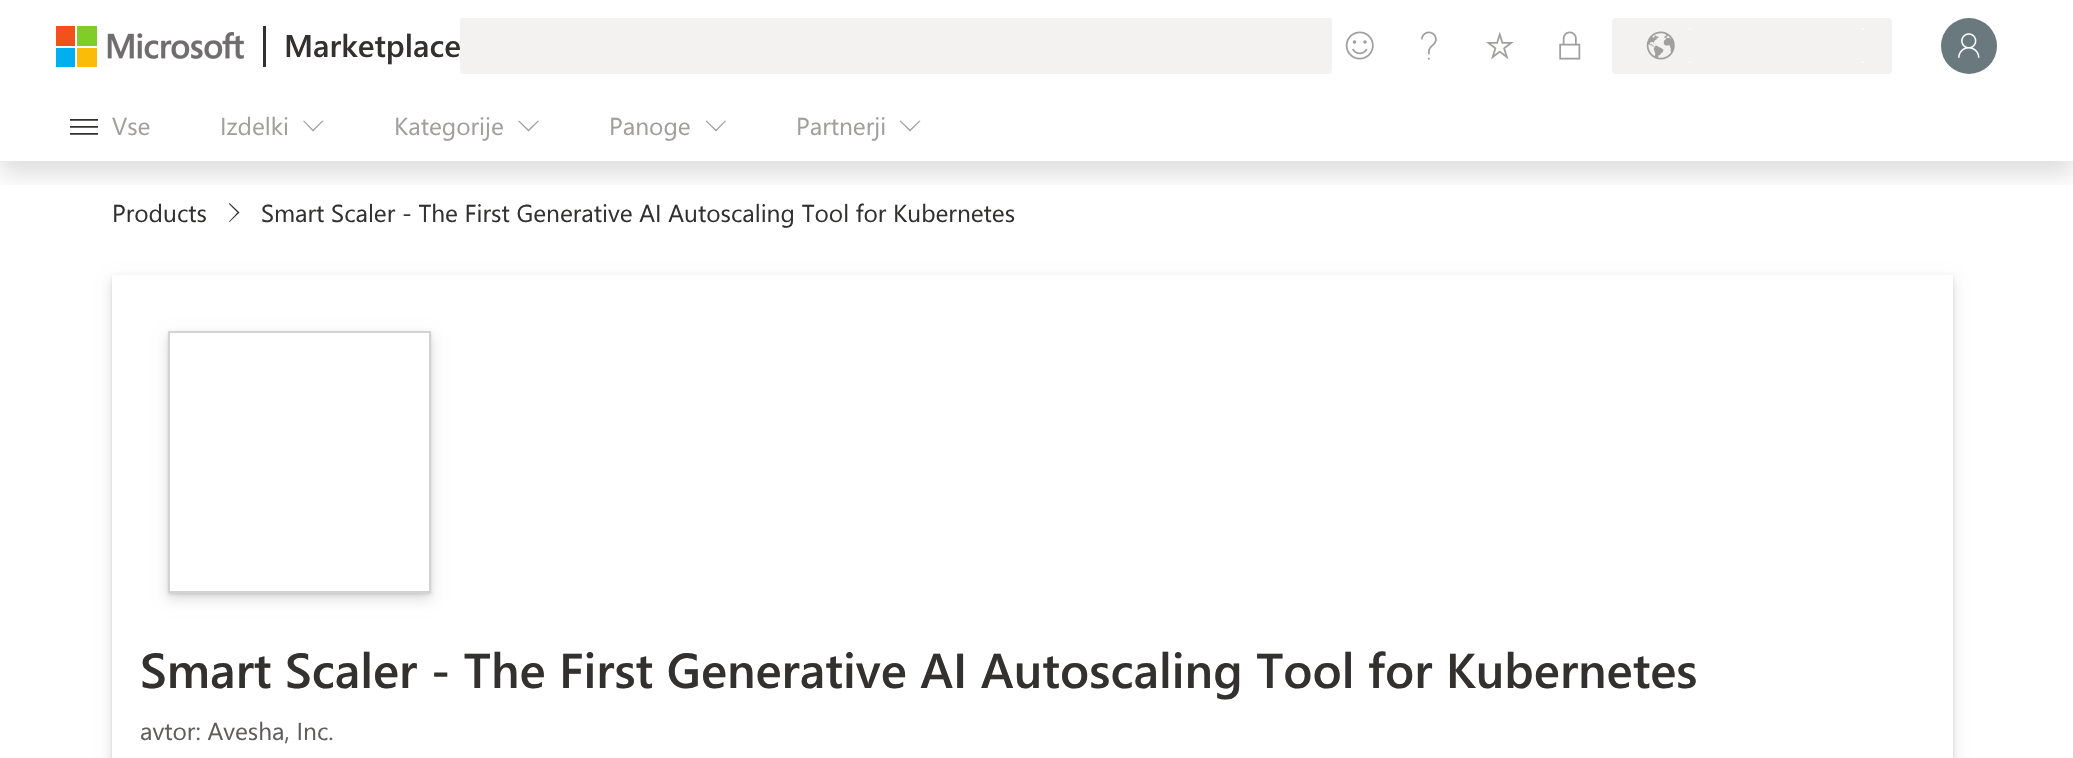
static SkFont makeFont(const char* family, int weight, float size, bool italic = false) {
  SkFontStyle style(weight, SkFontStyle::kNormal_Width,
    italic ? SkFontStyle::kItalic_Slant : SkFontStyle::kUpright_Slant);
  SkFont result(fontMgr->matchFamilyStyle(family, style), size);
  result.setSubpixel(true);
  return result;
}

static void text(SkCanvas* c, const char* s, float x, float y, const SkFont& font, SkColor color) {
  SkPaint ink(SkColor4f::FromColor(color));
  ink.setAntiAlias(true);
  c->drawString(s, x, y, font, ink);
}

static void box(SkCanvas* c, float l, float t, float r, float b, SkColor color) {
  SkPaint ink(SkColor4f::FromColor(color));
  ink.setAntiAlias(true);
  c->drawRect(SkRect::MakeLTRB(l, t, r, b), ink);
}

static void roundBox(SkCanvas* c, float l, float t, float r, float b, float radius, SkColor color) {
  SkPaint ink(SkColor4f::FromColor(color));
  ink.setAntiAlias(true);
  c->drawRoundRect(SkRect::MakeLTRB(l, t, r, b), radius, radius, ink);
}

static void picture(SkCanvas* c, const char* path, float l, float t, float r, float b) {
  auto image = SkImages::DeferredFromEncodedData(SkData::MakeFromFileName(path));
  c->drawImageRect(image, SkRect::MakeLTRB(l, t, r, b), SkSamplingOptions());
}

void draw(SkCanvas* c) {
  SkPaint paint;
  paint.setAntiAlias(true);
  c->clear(0xffffffff);
  paint.setColor(0xff323130);
  c->drawPath(SkPathBuilder().moveTo(229, 221.5f).lineTo(237.5f, 212.5f).lineTo(229, 204).lineTo(229.5f, 203).lineTo(239.5f, 212.5f).lineTo(229.5f, 222).close().detach(), paint);
  c->save();
  c->clipRect(SkRect::MakeLTRB(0, 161, 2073, 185));
  paint.setColor(0x1f000000);
  paint.setMaskFilter(SkMaskFilter::MakeBlur(kNormal_SkBlurStyle, 10.5f));
  c->drawRect(SkRect::MakeLTRB(0, 14, 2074, 175), paint);
  paint.setMaskFilter(nullptr);
  c->restore();
  picture(c, "img_01.png", 56, 26, 244, 67);
  box(c, 263, 26, 266, 67, 0xff323130);
  SkFont face1 = makeFont("Segoe UI", 600, 31.5f);
  text(c, "Marketplace", 284, 57, face1, 0xff323130);
  box(c, 460, 18, 1332, 74, 0xfff3f2f1);
  picture(c, "img_02.png", 460, 18, 462, 20);
  picture(c, "img_03.png", 1330, 18, 1332, 20);
  box(c, 460, 71, 463, 74, 0xfff8f7f7);
  box(c, 1329, 71, 1332, 74, 0xfff8f7f7);
  picture(c, "img_04.png", 1345, 31, 1374, 60);
  picture(c, "img_05.png", 1421, 31, 1437, 60);
  picture(c, "img_06.png", 1486, 31, 1514, 60);
  picture(c, "img_07.png", 1559, 31, 1581, 60);
  roundBox(c, 1612, 18, 1892, 74, 4, 0xfff3f2f1);
  picture(c, "img_08.png", 1646, 31, 1675, 60);
  picture(c, "img_09.png", 1689, 28, 1691, 30);
  picture(c, "img_10.png", 1861, 28, 1864, 30);
  picture(c, "img_11.png", 1689, 61, 1691, 63);
  picture(c, "img_12.png", 1861, 61, 1864, 63);
  paint.setColor(0xff69797e);
  c->drawCircle(1969, 46, 28, paint);
  picture(c, "img_13.png", 1958, 33, 1980, 58);
  picture(c, "img_14.png", 70, 119, 98, 135);
  SkFont face2 = makeFont("Segoe UI", 400, 24.5f);
  text(c, "Vse", 112, 135, face2, 0xffa19f9d);
  text(c, "Izdelki", 220, 135, face2, 0xffa19f9d);
  paint.setColor(0xffa19f9d);
  c->drawPath(SkPathBuilder().moveTo(322.5f, 120.5f).lineTo(323.5f, 121).lineTo(313, 131.5f).lineTo(303, 121).lineTo(304, 120.5f).lineTo(313, 129.5f).close().detach(), paint);
  text(c, "Kategorije", 394, 135, face2, 0xffa19f9d);
  c->drawPath(SkPathBuilder().moveTo(538, 120.5f).lineTo(539, 121).lineTo(528.5f, 131.5f).lineTo(518, 121).lineTo(519, 120.5f).lineTo(528.5f, 129.5f).close().detach(), paint);
  text(c, "Panoge", 609, 135, face2, 0xffa19f9d);
  c->drawPath(SkPathBuilder().moveTo(725, 120.5f).lineTo(726, 121).lineTo(716, 131.5f).lineTo(705.5f, 121).lineTo(706.5f, 120.5f).lineTo(716, 129.5f).close().detach(), paint);
  text(c, "Partnerji", 796, 135, face2, 0xffa19f9d);
  c->drawPath(SkPathBuilder().moveTo(919.5f, 120.5f).lineTo(920.5f, 121).lineTo(910, 131.5f).lineTo(899.5f, 121).lineTo(900.5f, 120.5f).lineTo(910, 129.5f).close().detach(), paint);
  text(c, "Products", 112, 222, face2, 0xff323130);
  text(c, "Smart Scaler - The First Generative AI Autoscaling Tool for Kubernetes", 261, 222, face2, 0xff323130);
  c->save();
  c->clipPath(SkPathBuilder(SkPathFillType::kEvenOdd).moveTo(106, 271).lineTo(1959, 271).lineTo(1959, 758).lineTo(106, 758).close().moveTo(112, 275).lineTo(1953, 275).lineTo(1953, 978).lineTo(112, 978).close().detach(), true);
  paint.setColor(0x1c000000);
  paint.setMaskFilter(SkMaskFilter::MakeBlur(kNormal_SkBlurStyle, 1.5f));
  c->drawRect(SkRect::MakeLTRB(112, 277, 1953, 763), paint);
  paint.setMaskFilter(nullptr);
  c->restore();
  c->save();
  c->clipPath(SkPathBuilder(SkPathFillType::kEvenOdd).moveTo(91, 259).lineTo(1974, 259).lineTo(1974, 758).lineTo(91, 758).close().moveTo(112, 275).lineTo(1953, 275).lineTo(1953, 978).lineTo(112, 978).close().detach(), true);
  paint.setColor(0x21000000);
  paint.setMaskFilter(SkMaskFilter::MakeBlur(kNormal_SkBlurStyle, 6.5f));
  c->drawRect(SkRect::MakeLTRB(112, 280, 1953, 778), paint);
  paint.setMaskFilter(nullptr);
  c->restore();
  c->save();
  c->clipPath(SkPathBuilder(SkPathFillType::kEvenOdd).moveTo(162, 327).lineTo(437, 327).lineTo(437, 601).lineTo(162, 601).close().moveTo(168, 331).lineTo(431, 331).lineTo(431, 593).lineTo(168, 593).close().detach(), true);
  paint.setColor(0x1c000000);
  paint.setMaskFilter(SkMaskFilter::MakeBlur(kNormal_SkBlurStyle, 1.5f));
  c->drawRect(SkRect::MakeLTRB(168, 333, 431, 595), paint);
  paint.setMaskFilter(nullptr);
  c->restore();
  c->save();
  c->clipPath(SkPathBuilder(SkPathFillType::kEvenOdd).moveTo(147, 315).lineTo(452, 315).lineTo(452, 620).lineTo(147, 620).close().moveTo(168, 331).lineTo(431, 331).lineTo(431, 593).lineTo(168, 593).close().detach(), true);
  paint.setColor(0x21000000);
  paint.setMaskFilter(SkMaskFilter::MakeBlur(kNormal_SkBlurStyle, 6.5f));
  c->drawRect(SkRect::MakeLTRB(168, 336, 431, 599), paint);
  paint.setMaskFilter(nullptr);
  c->restore();
  paint.setStyle(SkPaint::kStroke_Style);
  paint.setStrokeWidth(2);
  paint.setColor(0xffd3d3d3);
  c->drawRect(SkRect::MakeLTRB(169, 332, 430, 592), paint);
  SkFont face3 = makeFont("Segoe UI", 600, 49);
  text(c, "Smart Scaler - The First Generative AI Autoscaling Tool for Kubernetes", 140, 688, face3, 0xff323130);
  text(c, "avtor: Avesha, Inc.", 140, 740, face2, 0xff605e5c);
}
